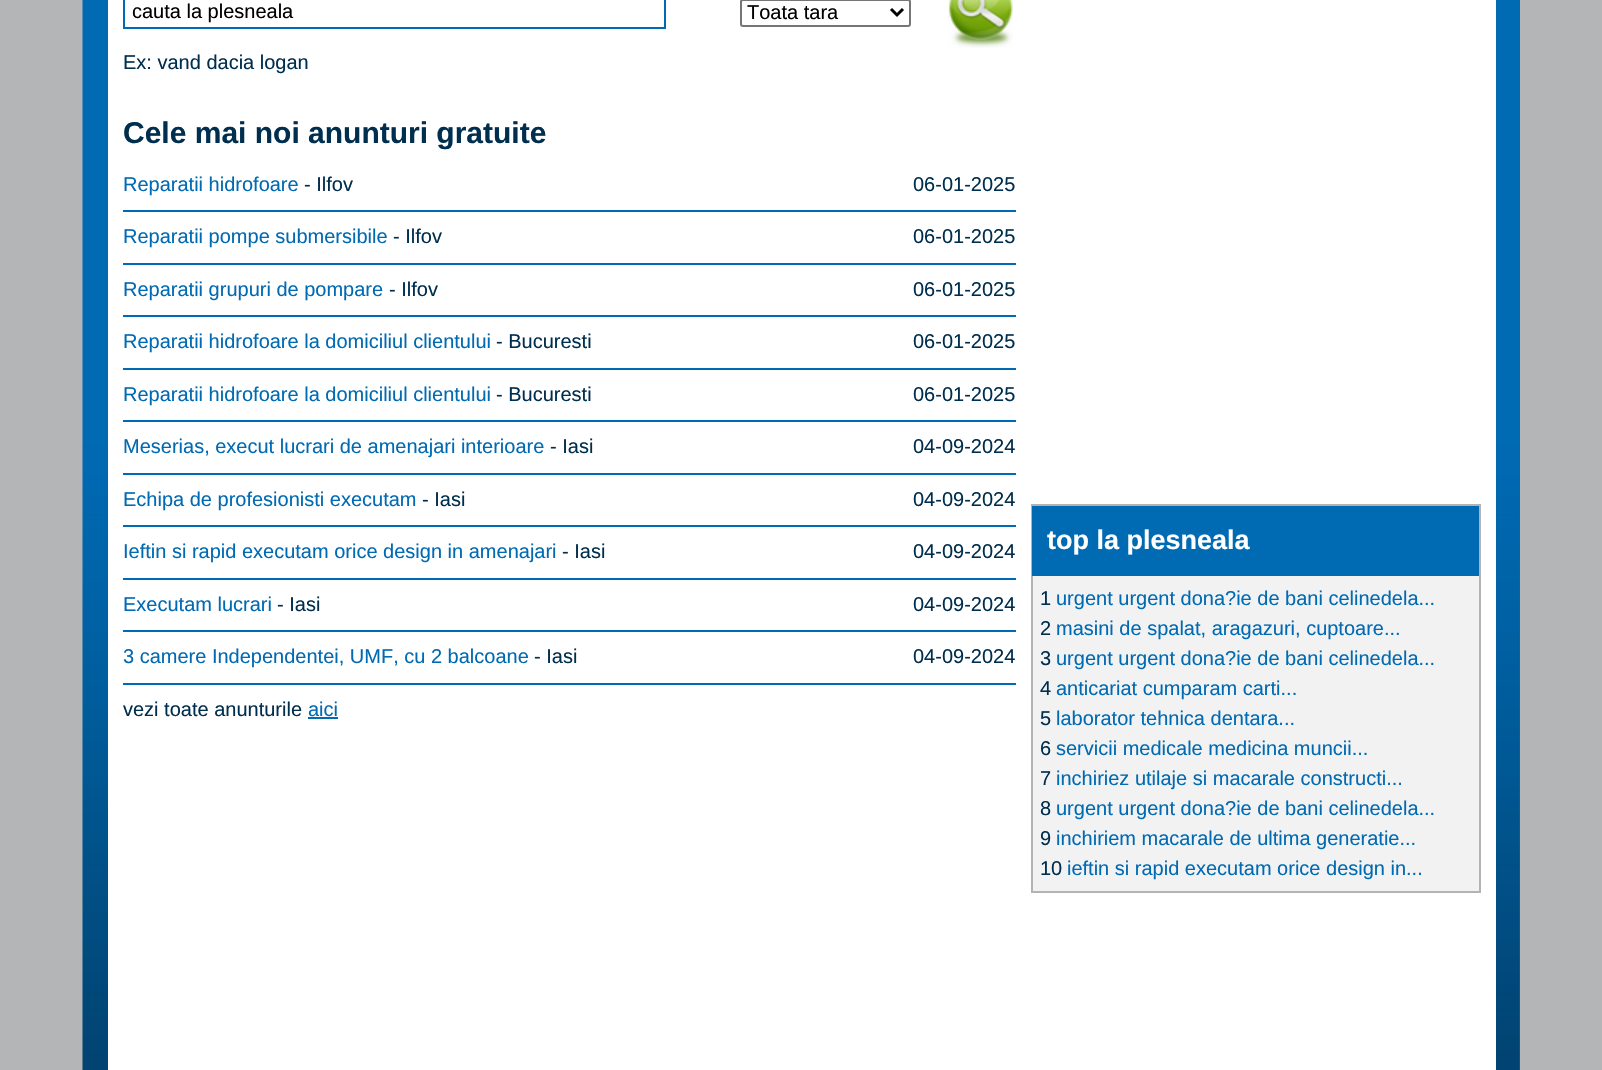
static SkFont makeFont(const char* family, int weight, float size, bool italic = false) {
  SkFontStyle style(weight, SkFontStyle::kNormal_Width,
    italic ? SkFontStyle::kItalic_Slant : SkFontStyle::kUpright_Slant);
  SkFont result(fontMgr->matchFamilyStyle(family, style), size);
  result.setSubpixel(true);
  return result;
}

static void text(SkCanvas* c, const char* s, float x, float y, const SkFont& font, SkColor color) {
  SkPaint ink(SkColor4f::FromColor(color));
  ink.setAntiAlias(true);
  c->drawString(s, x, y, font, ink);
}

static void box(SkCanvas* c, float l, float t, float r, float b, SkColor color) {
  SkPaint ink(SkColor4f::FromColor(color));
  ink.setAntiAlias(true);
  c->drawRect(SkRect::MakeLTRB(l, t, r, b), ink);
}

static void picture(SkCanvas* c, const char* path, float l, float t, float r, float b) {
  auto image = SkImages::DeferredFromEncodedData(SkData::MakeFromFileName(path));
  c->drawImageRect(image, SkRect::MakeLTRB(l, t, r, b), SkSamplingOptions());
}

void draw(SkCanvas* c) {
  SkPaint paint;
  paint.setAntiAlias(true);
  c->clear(0xffb3b5b6);
  box(c, 1519, 0, 1520, 1070, 0xff006ab3);
  picture(c, "img_01.png", 82, 0, 1520, 1070);
  box(c, 108, 0, 1496, 1070, 0xffffffff);
  paint.setStyle(SkPaint::kStroke_Style);
  paint.setStrokeWidth(2);
  paint.setColor(0xff006ab3);
  c->drawRect(SkRect::MakeLTRB(124, -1, 665, 28), paint);
  SkFont face1 = makeFont("Liberation Sans", 400, 20);
  text(c, "cauta la plesneala", 132, 18, face1, 0xff000000);
  paint.setColor(0xff767676);
  c->drawRoundRect(SkRect::MakeLTRB(741, 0, 910, 26), 2, 2, paint);
  paint.setStrokeWidth(3);
  paint.setColor(0xff000000);
  c->drawPath(SkPathBuilder().moveTo(891, 9).lineTo(897, 15).lineTo(903, 9).detach(), paint);
  text(c, "Toata tara", 747, 19, face1, 0xff000000);
  picture(c, "img_02.png", 948, 0, 1013, 48);
  text(c, "Ex: vand dacia logan", 123, 69, face1, 0xff002e4e);
  SkFont face2 = makeFont("Liberation Sans", 700, 30);
  text(c, "Cele mai noi anunturi gratuite", 123, 143, face2, 0xff002e4e);
  box(c, 123, 210, 1016, 212, 0xff006ab3);
  text(c, "Reparatii hidrofoare", 123, 191, face1, 0xff006ab3);
  text(c, "- Ilfov", 304, 191, face1, 0xff002e4e);
  text(c, "06-01-2025", 913, 191, face1, 0xff002e4e);
  box(c, 123, 263, 1016, 265, 0xff006ab3);
  text(c, "Reparatii pompe submersibile", 123, 243, face1, 0xff006ab3);
  text(c, "- Ilfov", 393, 243, face1, 0xff002e4e);
  text(c, "06-01-2025", 913, 243, face1, 0xff002e4e);
  box(c, 123, 315, 1016, 317, 0xff006ab3);
  text(c, "Reparatii grupuri de pompare", 123, 296, face1, 0xff006ab3);
  text(c, "- Ilfov", 389, 296, face1, 0xff002e4e);
  text(c, "06-01-2025", 913, 296, face1, 0xff002e4e);
  box(c, 123, 368, 1016, 370, 0xff006ab3);
  text(c, "Reparatii hidrofoare la domiciliul clientului", 123, 348, face1, 0xff006ab3);
  text(c, "- Bucuresti", 496, 348, face1, 0xff002e4e);
  text(c, "06-01-2025", 913, 348, face1, 0xff002e4e);
  box(c, 123, 420, 1016, 422, 0xff006ab3);
  text(c, "Reparatii hidrofoare la domiciliul clientului", 123, 401, face1, 0xff006ab3);
  text(c, "- Bucuresti", 496, 401, face1, 0xff002e4e);
  text(c, "06-01-2025", 913, 401, face1, 0xff002e4e);
  box(c, 123, 473, 1016, 475, 0xff006ab3);
  text(c, "Meserias, execut lucrari de amenajari interioare", 123, 453, face1, 0xff006ab3);
  text(c, "- Iasi", 550, 453, face1, 0xff002e4e);
  text(c, "04-09-2024", 913, 453, face1, 0xff002e4e);
  box(c, 123, 525, 1016, 527, 0xff006ab3);
  text(c, "Echipa de profesionisti executam", 123, 506, face1, 0xff006ab3);
  text(c, "- Iasi", 422, 506, face1, 0xff002e4e);
  text(c, "04-09-2024", 913, 506, face1, 0xff002e4e);
  box(c, 123, 578, 1016, 580, 0xff006ab3);
  text(c, "Ieftin si rapid executam orice design in amenajari", 123, 558, face1, 0xff006ab3);
  text(c, "- Iasi", 562, 558, face1, 0xff002e4e);
  text(c, "04-09-2024", 913, 558, face1, 0xff002e4e);
  box(c, 123, 630, 1016, 632, 0xff006ab3);
  text(c, "Executam lucrari", 123, 611, face1, 0xff006ab3);
  text(c, "- Iasi", 277, 611, face1, 0xff002e4e);
  text(c, "04-09-2024", 913, 611, face1, 0xff002e4e);
  box(c, 123, 683, 1016, 685, 0xff006ab3);
  text(c, "3 camere Independentei, UMF, cu 2 balcoane", 123, 663, face1, 0xff006ab3);
  text(c, "- Iasi", 534, 663, face1, 0xff002e4e);
  text(c, "04-09-2024", 913, 663, face1, 0xff002e4e);
  text(c, "vezi toate anunturile", 123, 716, face1, 0xff002e4e);
  text(c, "aici", 308, 716, face1, 0xff006ab3);
  box(c, 308, 717, 338, 719, 0xff006ab3);
  box(c, 1033, 576, 1479, 891, 0xfff2f2f2);
  paint.setStrokeWidth(2);
  paint.setColor(0xffb3b3b3);
  c->drawRect(SkRect::MakeLTRB(1032, 505, 1480, 892), paint);
  box(c, 1032, 506, 1479, 576, 0xff006ab3);
  SkFont face3 = makeFont("Liberation Sans", 700, 27);
  text(c, "top la plesneala", 1047, 549, face3, 0xffffffff);
  text(c, "1", 1040, 605, face1, 0xff002e4e);
  text(c, "urgent urgent dona?ie de bani celinedela...", 1056, 605, face1, 0xff006ab3);
  text(c, "2", 1040, 635, face1, 0xff002e4e);
  text(c, "masini de spalat, aragazuri, cuptoare...", 1056, 635, face1, 0xff006ab3);
  text(c, "3", 1040, 665, face1, 0xff002e4e);
  text(c, "urgent urgent dona?ie de bani celinedela...", 1056, 665, face1, 0xff006ab3);
  text(c, "4", 1040, 695, face1, 0xff002e4e);
  text(c, "anticariat cumparam carti...", 1056, 695, face1, 0xff006ab3);
  text(c, "5", 1040, 725, face1, 0xff002e4e);
  text(c, "laborator tehnica dentara...", 1056, 725, face1, 0xff006ab3);
  text(c, "6", 1040, 755, face1, 0xff002e4e);
  text(c, "servicii medicale medicina muncii...", 1056, 755, face1, 0xff006ab3);
  text(c, "7", 1040, 785, face1, 0xff002e4e);
  text(c, "inchiriez utilaje si macarale constructi...", 1056, 785, face1, 0xff006ab3);
  text(c, "8", 1040, 815, face1, 0xff002e4e);
  text(c, "urgent urgent dona?ie de bani celinedela...", 1056, 815, face1, 0xff006ab3);
  text(c, "9", 1040, 845, face1, 0xff002e4e);
  text(c, "inchiriem macarale de ultima generatie...", 1056, 845, face1, 0xff006ab3);
  text(c, "10", 1040, 875, face1, 0xff002e4e);
  text(c, "ieftin si rapid executam orice design in...", 1067, 875, face1, 0xff006ab3);
}
